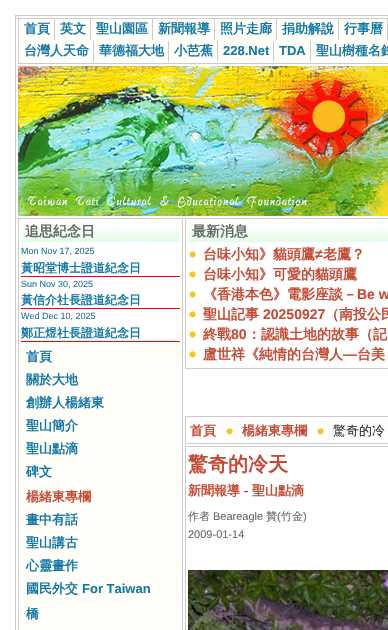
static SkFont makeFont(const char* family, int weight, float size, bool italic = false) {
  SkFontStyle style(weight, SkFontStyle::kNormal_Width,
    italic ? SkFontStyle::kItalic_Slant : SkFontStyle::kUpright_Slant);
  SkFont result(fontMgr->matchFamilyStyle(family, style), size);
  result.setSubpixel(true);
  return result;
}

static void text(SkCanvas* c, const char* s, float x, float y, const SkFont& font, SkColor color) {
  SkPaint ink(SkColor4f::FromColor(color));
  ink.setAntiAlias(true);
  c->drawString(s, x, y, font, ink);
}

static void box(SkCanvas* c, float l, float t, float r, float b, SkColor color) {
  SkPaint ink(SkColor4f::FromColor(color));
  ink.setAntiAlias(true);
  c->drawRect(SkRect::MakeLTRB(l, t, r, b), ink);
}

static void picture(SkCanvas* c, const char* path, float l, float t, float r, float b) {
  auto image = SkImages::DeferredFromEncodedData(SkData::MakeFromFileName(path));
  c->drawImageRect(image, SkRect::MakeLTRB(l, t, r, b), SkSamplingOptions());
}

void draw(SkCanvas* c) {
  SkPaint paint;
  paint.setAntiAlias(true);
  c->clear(0xffffffff);
  paint.setStyle(SkPaint::kStroke_Style);
  paint.setStrokeWidth(1);
  paint.setColor(0xffcccccc);
  c->drawRect(SkRect::MakeLTRB(15.5f, 15.5f, 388.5f, 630.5f), paint);
  c->drawRect(SkRect::MakeLTRB(18.5f, 18.5f, 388.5f, 63.5f), paint);
  box(c, 54, 19, 55, 41, 0xffcccccc);
  box(c, 19, 40, 55, 41, 0xfffffef8);
  box(c, 19, 19, 54, 40, 0xfffffef8);
  SkFont face1 = makeFont("WenQuanYi Zen Hei", 700, 13);
  text(c, "首頁", 24, 33, face1, 0xff1478a7);
  box(c, 90, 19, 91, 41, 0xffcccccc);
  box(c, 55, 40, 91, 41, 0xfffffef8);
  box(c, 55, 19, 90, 40, 0xfffffef8);
  text(c, "英文", 60, 33, face1, 0xff1478a7);
  box(c, 152, 19, 153, 41, 0xffcccccc);
  box(c, 91, 40, 153, 41, 0xfffffef8);
  box(c, 91, 19, 152, 40, 0xfffffef8);
  text(c, "聖山園區", 96, 33, face1, 0xff1478a7);
  box(c, 214, 19, 215, 41, 0xffcccccc);
  box(c, 153, 40, 215, 41, 0xfffffef8);
  box(c, 153, 19, 214, 40, 0xfffffef8);
  text(c, "新聞報導", 158, 33, face1, 0xff1478a7);
  box(c, 276, 19, 277, 41, 0xffcccccc);
  box(c, 215, 40, 277, 41, 0xfffffef8);
  box(c, 215, 19, 276, 40, 0xfffffef8);
  text(c, "照片走廊", 220, 33, face1, 0xff1478a7);
  box(c, 338, 19, 339, 41, 0xffcccccc);
  box(c, 277, 40, 339, 41, 0xfffffef8);
  box(c, 277, 19, 338, 40, 0xfffffef8);
  text(c, "捐助解說", 282, 33, face1, 0xff1478a7);
  box(c, 387, 19, 388, 41, 0xffcccccc);
  box(c, 339, 40, 388, 41, 0xfffffef8);
  box(c, 339, 19, 387, 40, 0xfffffef8);
  text(c, "行事曆", 344, 33, face1, 0xff1478a7);
  box(c, 93, 41, 94, 63, 0xffcccccc);
  box(c, 19, 62, 94, 63, 0xfffffef8);
  box(c, 19, 41, 93, 62, 0xfffffef8);
  text(c, "台灣人天命", 24, 55, face1, 0xff1478a7);
  box(c, 168, 41, 169, 63, 0xffcccccc);
  box(c, 94, 62, 169, 63, 0xfffffef8);
  box(c, 94, 41, 168, 62, 0xfffffef8);
  text(c, "華德福大地", 99, 55, face1, 0xff1478a7);
  box(c, 217, 41, 218, 63, 0xffcccccc);
  box(c, 169, 62, 218, 63, 0xfffffef8);
  box(c, 169, 41, 217, 62, 0xfffffef8);
  text(c, "小芭蕉", 174, 55, face1, 0xff1478a7);
  box(c, 273, 41, 274, 63, 0xffcccccc);
  box(c, 218, 62, 274, 63, 0xfffffef8);
  box(c, 218, 41, 273, 62, 0xfffffef8);
  SkFont face2 = makeFont("Liberation Sans", 700, 13);
  text(c, "228.Net", 223, 55, face2, 0xff1478a7);
  box(c, 310, 41, 311, 63, 0xffcccccc);
  box(c, 274, 62, 388, 63, 0xfffffef8);
  box(c, 274, 41, 310, 62, 0xfffffef8);
  text(c, "TDA", 279, 55, face2, 0xff1478a7);
  box(c, 311, 41, 388, 62, 0xfffffef8);
  text(c, "聖山樹種名錄", 316, 55, face1, 0xff1478a7);
  picture(c, "img_01.png", 18, 66, 388, 216);
  c->drawRect(SkRect::MakeLTRB(18.5f, 218.5f, 182.5f, 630.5f), paint);
  picture(c, "img_02.png", 21, 225, 180, 242);
  SkFont face3 = makeFont("WenQuanYi Zen Hei", 700, 14);
  text(c, "追思紀念日", 25, 236, face3, 0xff666666);
  box(c, 21, 276, 180, 277, 0xffff0000);
  SkFont face4 = makeFont("Liberation Sans", 400, 9);
  text(c, "Mon Nov 17, 2025", 21, 254, face4, 0xff21739a);
  SkFont face5 = makeFont("WenQuanYi Zen Hei", 700, 12);
  text(c, "黃昭堂博士證道紀念日", 21, 272, face5, 0xff1478a7);
  box(c, 21, 308, 180, 309, 0xffff0000);
  text(c, "Sun Nov 30, 2025", 21, 287, face4, 0xff21739a);
  text(c, "黃信介社長證道紀念日", 21, 304, face5, 0xff1478a7);
  box(c, 21, 341, 180, 342, 0xffff0000);
  text(c, "Wed Dec 10, 2025", 21, 319, face4, 0xff21739a);
  text(c, "鄭正煜社長證道紀念日", 21, 337, face5, 0xff1478a7);
  box(c, 21, 344, 180, 482, 0xfffffef8);
  text(c, "首頁", 26, 361, face1, 0xff1478a7);
  text(c, "關於大地", 26, 384, face1, 0xff1478a7);
  text(c, "創辦人楊緒東", 26, 407, face1, 0xff1478a7);
  text(c, "聖山簡介", 26, 430, face1, 0xff1478a7);
  text(c, "聖山點滴", 26, 453, face1, 0xff1478a7);
  text(c, "碑文", 26, 476, face1, 0xff1478a7);
  box(c, 21, 484, 180, 599, 0xfffffef8);
  text(c, "楊緒東專欄", 26, 501, face1, 0xffc64934);
  text(c, "畫中有話", 26, 524, face1, 0xff1478a7);
  text(c, "聖山講古", 26, 547, face1, 0xff1478a7);
  text(c, "心靈畫作", 26, 570, face1, 0xff1478a7);
  text(c, "國民外交", 26, 593, face1, 0xff1478a7);
  text(c, "For Taiwan", 82, 593, face2, 0xff1478a7);
  box(c, 21, 601, 180, 630, 0xfffffef8);
  text(c, "橋", 26, 618, face1, 0xff1478a7);
  c->drawRect(SkRect::MakeLTRB(185.5f, 218.5f, 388.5f, 368.5f), paint);
  picture(c, "img_03.png", 188, 225, 388, 242);
  text(c, "最新消息", 192, 236, face3, 0xff666666);
  picture(c, "img_04.png", 189, 251, 196, 258);
  text(c, "台味小知》貓頭鷹", 203, 259, face3, 0xffc64934);
  SkFont face6 = makeFont("Liberation Sans", 700, 14);
  text(c, "≠", 315, 259, face6, 0xffc64934);
  text(c, "老鷹？", 323, 259, face3, 0xffc64934);
  picture(c, "img_04.png", 189, 271, 196, 278);
  text(c, "台味小知》可愛的貓頭鷹", 203, 279, face3, 0xffc64934);
  picture(c, "img_04.png", 189, 291, 196, 298);
  text(c, "《香港本色》電影座談－", 203, 299, face3, 0xffc64934);
  text(c, "Be w", 357, 299, face6, 0xffc64934);
  picture(c, "img_04.png", 189, 311, 196, 318);
  text(c, "聖山記事", 203, 319, face3, 0xffc64934);
  text(c, "20250927", 263, 319, face6, 0xffc64934);
  text(c, "（南投公民", 325, 319, face3, 0xffc64934);
  picture(c, "img_04.png", 189, 331, 196, 338);
  text(c, "終戰", 203, 339, face3, 0xffc64934);
  text(c, "80", 231, 339, face6, 0xffc64934);
  text(c, "：認識土地的故事（記", 247, 339, face3, 0xffc64934);
  picture(c, "img_04.png", 189, 351, 196, 358);
  text(c, "盧世祥《純情的台灣人", 203, 359, face3, 0xffc64934);
  text(c, "—", 343, 359, face6, 0xffc64934);
  text(c, "台美", 357, 359, face3, 0xffc64934);
  c->drawRect(SkRect::MakeLTRB(185.5f, 416.5f, 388.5f, 443.5f), paint);
  text(c, "首頁", 190, 435, face1, 0xffc64934);
  picture(c, "img_04.png", 226, 428, 233, 435);
  text(c, "楊緒東專欄", 242, 435, face1, 0xffc64934);
  picture(c, "img_04.png", 317, 428, 324, 435);
  SkFont face7 = makeFont("WenQuanYi Zen Hei", 500, 13);
  text(c, "驚奇的冷", 333, 435, face7, 0xff333333);
  c->drawRect(SkRect::MakeLTRB(185.5f, 446.5f, 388.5f, 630.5f), paint);
  SkFont face8 = makeFont("WenQuanYi Zen Hei", 700, 20);
  text(c, "驚奇的冷天", 188, 471, face8, 0xffc64934);
  text(c, "新聞報導", 188, 495, face1, 0xffc64934);
  SkFont face9 = makeFont("Liberation Sans", 400, 13);
  text(c, "-", 244, 495, face9, 0xff333333);
  text(c, "聖山點滴", 252, 495, face1, 0xffc64934);
  SkFont face10 = makeFont("WenQuanYi Zen Hei", 500, 11);
  text(c, "作者", 188, 520, face10, 0xff666666);
  SkFont face11 = makeFont("Liberation Sans", 400, 11);
  text(c, "Beareagle", 213, 520, face11, 0xff666666);
  text(c, "贊", 266, 520, face10, 0xff666666);
  text(c, "(", 277, 520, face11, 0xff666666);
  text(c, "竹金", 281, 520, face10, 0xff666666);
  text(c, ")", 303, 520, face11, 0xff666666);
  text(c, "2009-01-14", 188, 538, face11, 0xff666666);
  picture(c, "img_05.png", 188, 570, 388, 630);
}
